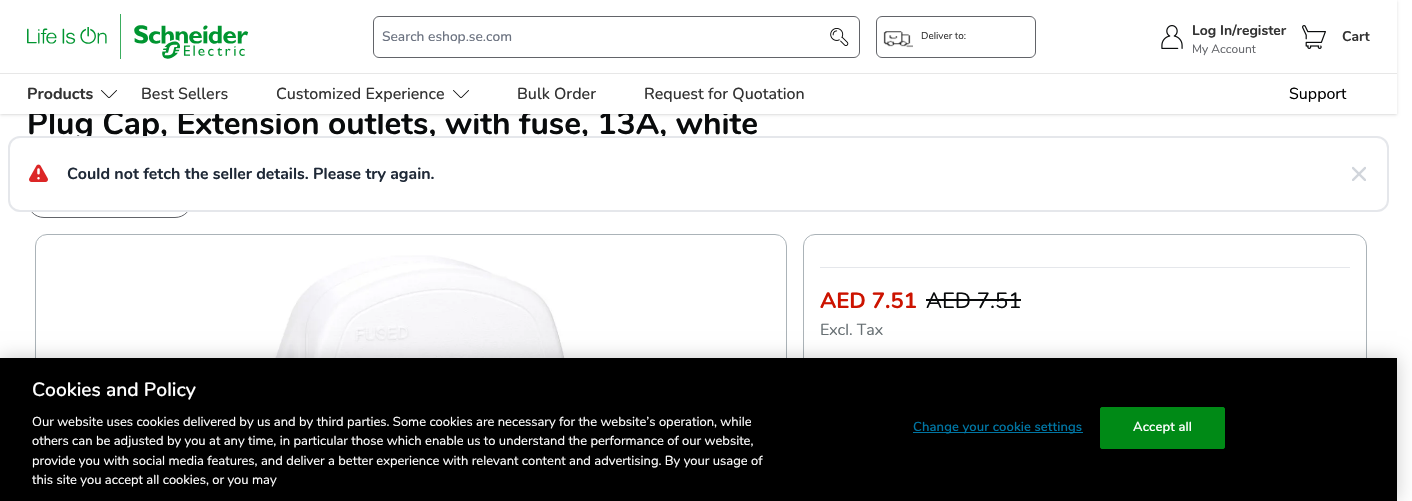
static SkFont makeFont(const char* family, int weight, float size, bool italic = false) {
  SkFontStyle style(weight, SkFontStyle::kNormal_Width,
    italic ? SkFontStyle::kItalic_Slant : SkFontStyle::kUpright_Slant);
  SkFont result(fontMgr->matchFamilyStyle(family, style), size);
  result.setSubpixel(true);
  return result;
}

static void text(SkCanvas* c, const char* s, float x, float y, const SkFont& font, SkColor color) {
  SkPaint ink(SkColor4f::FromColor(color));
  ink.setAntiAlias(true);
  c->drawString(s, x, y, font, ink);
}

static void spacedText(SkCanvas* c, const char* s, float x, float y, const SkFont& font, const SkPaint& ink, float letter, float word) {
  std::vector<SkGlyphID> glyphs(font.countText(s, strlen(s), SkTextEncoding::kUTF8));
  std::vector<float> xs(glyphs.size());
  font.textToGlyphs(s, strlen(s), SkTextEncoding::kUTF8, glyphs);
  font.getXPos(glyphs, xs, x);
  float extra = 0;
  for (size_t i = 0; i < glyphs.size(); i++) {
    xs[i] += extra;
    extra += letter + word * (glyphs[i] == font.unicharToGlyph(' '));
  }
  c->drawTextBlob(SkTextBlob::MakeFromPosHGlyphs(glyphs, xs, y, font), 0, 0, ink);
}

static void box(SkCanvas* c, float l, float t, float r, float b, SkColor color) {
  SkPaint ink(SkColor4f::FromColor(color));
  ink.setAntiAlias(true);
  c->drawRect(SkRect::MakeLTRB(l, t, r, b), ink);
}

static void picture(SkCanvas* c, const char* path, float l, float t, float r, float b) {
  auto image = SkImages::DeferredFromEncodedData(SkData::MakeFromFileName(path));
  c->drawImageRect(image, SkRect::MakeLTRB(l, t, r, b), SkSamplingOptions());
}

void draw(SkCanvas* c) {
  SkPaint paint;
  paint.setAntiAlias(true);
  c->clear(0xffffffff);
  paint.setColor(0x1a000000);
  paint.setMaskFilter(SkMaskFilter::MakeBlur(kNormal_SkBlurStyle, 1));
  c->drawRect(SkRect::MakeLTRB(1, 2, 1396, 114), paint);
  paint.setMaskFilter(nullptr);
  paint.setMaskFilter(SkMaskFilter::MakeBlur(kNormal_SkBlurStyle, 1.5f));
  c->drawRect(SkRect::MakeLTRB(0, 1, 1397, 115), paint);
  paint.setMaskFilter(nullptr);
  SkFont face1 = makeFont("Nunito", 700, 31.75f);
  text(c, "Plug Cap, Extension outlets, with fuse, 13A, white", 27, 134, face1, 0xff090b0c);
  box(c, 0, 0, 1397, 114, 0xffffffff);
  box(c, 0, 73, 1397, 74, 0xffe7e7e7);
  picture(c, "img_01.png", 27, 14, 249, 59);
  paint.setStyle(SkPaint::kStroke_Style);
  paint.setStrokeWidth(1);
  paint.setColor(0xff626469);
  c->drawRoundRect(SkRect::MakeLTRB(373.5f, 16.5f, 859.5f, 57.5f), 5.5f, 5.5f, paint);
  SkFont face2 = makeFont("Nunito", 500, 13.75f);
  text(c, "Search eshop.se.com", 382, 41, face2, 0xff6b7280);
  picture(c, "img_02.png", 830, 28, 849, 46);
  c->drawRoundRect(SkRect::MakeLTRB(876.5f, 16.5f, 1035.5f, 57.5f), 5.5f, 5.5f, paint);
  picture(c, "img_03.png", 883, 31, 913, 48);
  SkFont face3 = makeFont("Nunito", 400, 10);
  text(c, "Deliver to:", 921, 39, face3, 0xff333333);
  picture(c, "img_04.png", 1161, 25, 1183, 49);
  SkFont face4 = makeFont("Nunito", 700, 14);
  text(c, "Log In/register", 1192, 35, face4, 0xff333333);
  SkFont face5 = makeFont("Nunito", 400, 12);
  text(c, "My Account", 1192, 53, face5, 0xff626469);
  picture(c, "img_05.png", 1302, 25, 1326, 49);
  text(c, "Cart", 1342, 41, face4, 0xff333333);
  SkFont face6 = makeFont("Nunito", 700, 16);
  text(c, "Products", 27, 99, face6, 0xff333333);
  picture(c, "img_06.png", 101, 90, 117, 98);
  SkFont face7 = makeFont("Nunito", 500, 16);
  text(c, "Best Sellers", 141, 99, face7, 0xff333333);
  text(c, "Customized Experience", 276, 99, face7, 0xff333333);
  picture(c, "img_06.png", 453, 90, 469, 98);
  text(c, "Bulk Order", 517, 99, face7, 0xff333333);
  text(c, "Request for Quotation", 644, 99, face7, 0xff333333);
  SkFont face8 = makeFont("Nunito", 400, 16);
  text(c, "Support", 1289, 99, face8, 0xff000000);
  c->drawRoundRect(SkRect::MakeLTRB(27.5f, 184.5f, 191.5f, 217.5f), 16.5f, 16.5f, paint);
  paint.setColor(0xffabb3b8);
  c->drawRoundRect(SkRect::MakeLTRB(35.5f, 234.5f, 786.5f, 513.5f), 11.5f, 11.5f, paint);
  picture(c, "img_07.png", 253, 255, 571, 358);
  c->drawRoundRect(SkRect::MakeLTRB(803.5f, 234.5f, 1366.5f, 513.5f), 11.5f, 11.5f, paint);
  box(c, 820, 267, 1350, 268, 0xffe5e7eb);
  SkFont face9 = makeFont("Nunito", 700, 22);
  text(c, "AED 7.51", 820, 308, face9, 0xffcc1300);
  SkFont face10 = makeFont("Nunito", 400, 22);
  text(c, "AED 7.51", 926, 308, face10, 0xff090b0c);
  box(c, 926, 299, 1021, 301, 0xff090b0c);
  text(c, "Excl. Tax", 820, 335, face8, 0xff676f73);
  paint.setStyle(SkPaint::kFill_Style);
  paint.setColor(0xffffffff);
  c->drawRoundRect(SkRect::MakeLTRB(9, 137, 1388, 211), 11, 11, paint);
  paint.setStyle(SkPaint::kStroke_Style);
  paint.setStrokeWidth(2);
  paint.setColor(0xffe5e7eb);
  c->drawRoundRect(SkRect::MakeLTRB(9, 137, 1388, 211), 11, 11, paint);
  picture(c, "img_08.png", 29, 164, 48, 182);
  text(c, "Could not fetch the seller details. Please try again.", 67, 179, face6, 0xff1f2937);
  picture(c, "img_09.png", 1352, 166, 1366, 181);
  paint.setStyle(SkPaint::kFill_Style);
  paint.setColor(0x33000000);
  paint.setMaskFilter(SkMaskFilter::MakeBlur(kNormal_SkBlurStyle, 9));
  c->drawRect(SkRect::MakeLTRB(0, 358, 1397, 501), paint);
  paint.setMaskFilter(nullptr);
  box(c, 0, 358, 1397, 501, 0xff000000);
  SkFont face11 = makeFont("Nunito", 600, 19.25f);
  text(c, "Cookies and Policy", 32, 396, face11, 0xffffffff);
  SkFont face12 = makeFont("Nunito", 400, 13);
  text(c, "Our website uses cookies delivered by us and by third parties. Some cookies are necessary for the website’s operation, while", 32, 426, face12, 0xffffffff);
  text(c, "others can be adjusted by you at any time, in particular those which enable us to understand the performance of our website,", 32, 445, face12, 0xffffffff);
  text(c, "provide you with social media features, and deliver a better experience with relevant content and advertising. By your usage of", 32, 465, face12, 0xffffffff);
  text(c, "this site you accept all cookies, or you may", 32, 484, face12, 0xffffffff);
  box(c, 913, 432, 1083, 433, 0xff0075a3);
  SkFont face13 = makeFont("Nunito", 600, 13);
  paint.setColor(0xff0075a3);
  spacedText(c, "Change your cookie settings", 913, 431, face13, paint, 0.1f, 0);
  paint.setColor(0xff008a16);
  c->drawRoundRect(SkRect::MakeLTRB(1100.5f, 407.5f, 1224.5f, 448.5f), 1.5f, 1.5f, paint);
  paint.setStyle(SkPaint::kStroke_Style);
  paint.setStrokeWidth(1);
  c->drawRoundRect(SkRect::MakeLTRB(1100.5f, 407.5f, 1224.5f, 448.5f), 1.5f, 1.5f, paint);
  paint.setStyle(SkPaint::kFill_Style);
  paint.setColor(0xffffffff);
  spacedText(c, "Accept all", 1133, 431, face13, paint, 0.1f, 0);
}
